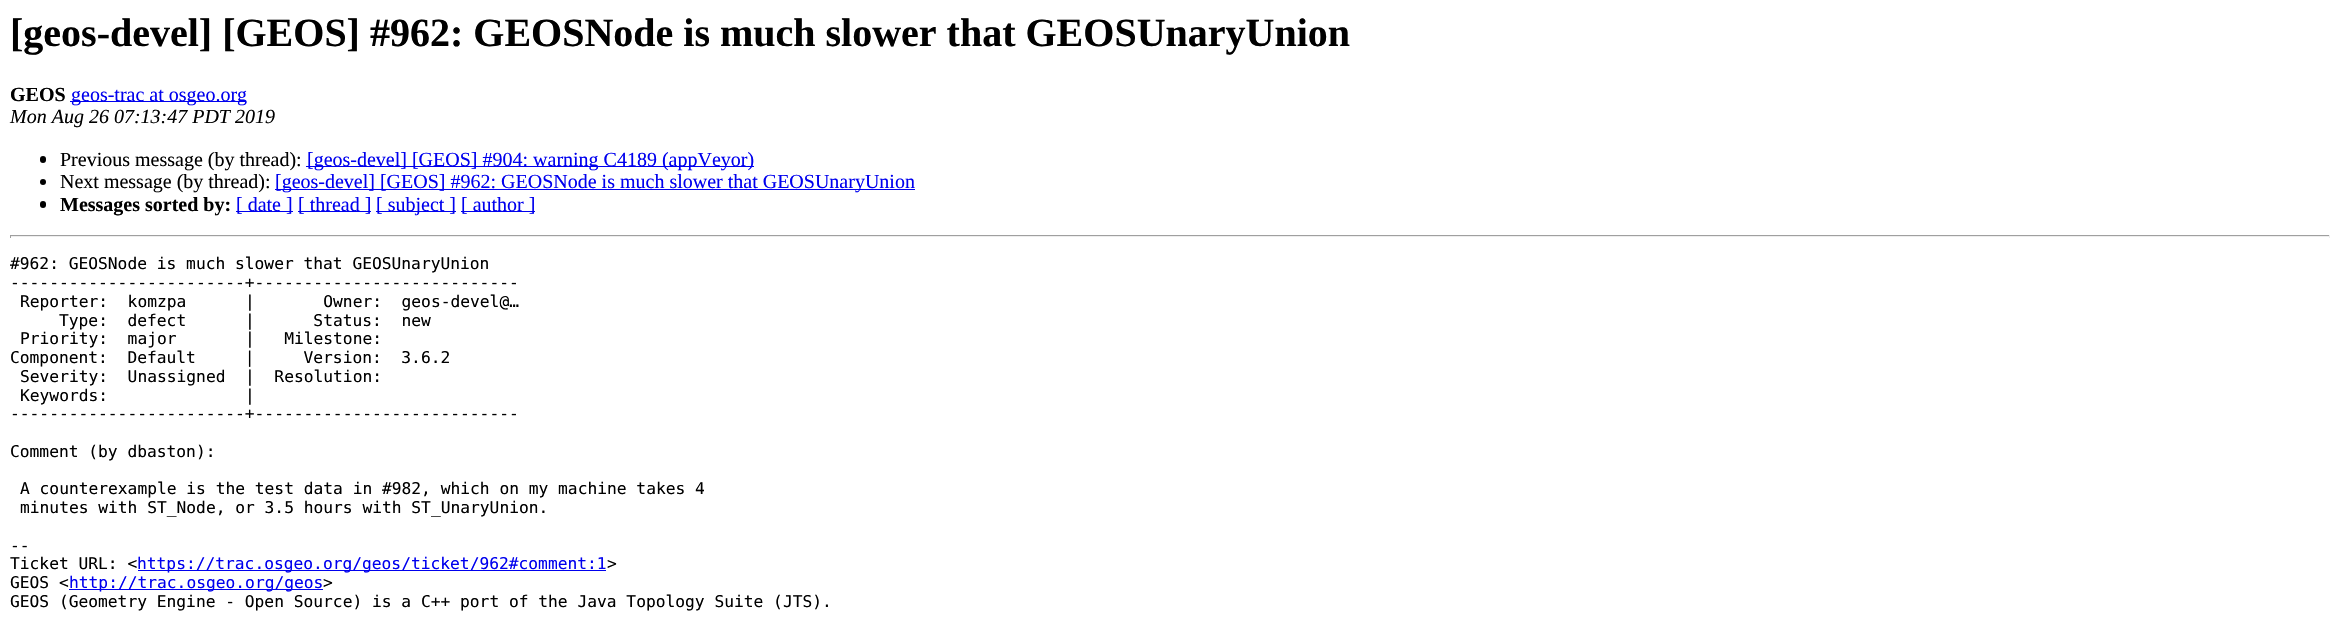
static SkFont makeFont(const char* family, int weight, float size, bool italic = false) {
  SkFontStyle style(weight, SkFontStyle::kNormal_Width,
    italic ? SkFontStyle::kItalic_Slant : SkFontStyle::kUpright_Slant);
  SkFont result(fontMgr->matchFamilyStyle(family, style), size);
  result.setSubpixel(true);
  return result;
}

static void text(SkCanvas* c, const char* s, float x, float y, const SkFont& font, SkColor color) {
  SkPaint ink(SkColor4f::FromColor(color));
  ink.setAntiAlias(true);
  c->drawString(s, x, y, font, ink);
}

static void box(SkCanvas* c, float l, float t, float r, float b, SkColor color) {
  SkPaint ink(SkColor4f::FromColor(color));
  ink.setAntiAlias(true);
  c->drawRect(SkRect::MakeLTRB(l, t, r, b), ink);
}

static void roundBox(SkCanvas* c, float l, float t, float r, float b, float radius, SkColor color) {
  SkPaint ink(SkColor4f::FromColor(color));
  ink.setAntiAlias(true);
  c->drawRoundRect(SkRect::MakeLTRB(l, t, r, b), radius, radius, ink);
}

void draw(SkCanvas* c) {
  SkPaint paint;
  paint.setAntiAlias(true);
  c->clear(0xffffffff);
  SkFont face1 = makeFont("Liberation Serif", 700, 40);
  text(c, "[geos-devel] [GEOS] #962: GEOSNode is much slower that GEOSUnaryUnion", 10, 46, face1, 0xff000000);
  SkFont face2 = makeFont("Liberation Serif", 700, 20);
  text(c, "GEOS", 10, 101, face2, 0xff000000);
  box(c, 70, 101, 246, 102, 0xff0000ee);
  SkFont face3 = makeFont("Liberation Serif", 400, 20);
  text(c, "geos-trac at osgeo.org", 71, 101, face3, 0xff0000ee);
  SkFont face4 = makeFont("Liberation Serif", 400, 20, true);
  text(c, "Mon Aug 26 07:13:47 PDT 2019", 10, 123, face4, 0xff000000);
  roundBox(c, 40, 156, 46, 163, 3, 0xff000000);
  text(c, "Previous message (by thread):", 60, 166, face3, 0xff000000);
  box(c, 306, 166, 754, 167, 0xff0000ee);
  text(c, "[geos-devel] [GEOS] #904: warning C4189 (appVeyor)", 307, 166, face3, 0xff0000ee);
  paint.setColor(0xff000000);
  c->drawCircle(43, 182, 3, paint);
  text(c, "Next message (by thread):", 60, 188, face3, 0xff000000);
  box(c, 275, 189, 915, 190, 0xff0000ee);
  text(c, "[geos-devel] [GEOS] #962: GEOSNode is much slower that GEOSUnaryUnion", 275, 188, face3, 0xff0000ee);
  roundBox(c, 40, 201, 46, 208, 3, 0xff000000);
  text(c, "Messages sorted by:", 60, 211, face2, 0xff000000);
  box(c, 236, 211, 293, 212, 0xff0000ee);
  text(c, "[ date ]", 236, 211, face3, 0xff0000ee);
  box(c, 298, 211, 371, 212, 0xff0000ee);
  text(c, "[ thread ]", 298, 211, face3, 0xff0000ee);
  box(c, 376, 211, 456, 212, 0xff0000ee);
  text(c, "[ subject ]", 376, 211, face3, 0xff0000ee);
  box(c, 461, 211, 535, 212, 0xff0000ee);
  text(c, "[ author ]", 461, 211, face3, 0xff0000ee);
  box(c, 10, 235, 2330, 236, 0xff9f9f9f);
  box(c, 2329, 235, 2330, 238, 0xffeeeeee);
  box(c, 10, 236, 2330, 237, 0xffeeeeee);
  box(c, 10, 235, 11, 238, 0xff9f9f9f);
  SkFont face5 = makeFont("DejaVu Sans Mono", 400, 16.25f);
  text(c, "#962: GEOSNode is much slower that GEOSUnaryUnion", 10, 269, face5, 0xff000000);
  text(c, "------------------------+---------------------------", 10, 288, face5, 0xff000000);
  text(c, "Reporter:  komzpa      |       Owner:  geos-devel@…", 20, 307, face5, 0xff000000);
  text(c, "Type:  defect      |      Status:  new", 59, 326, face5, 0xff000000);
  text(c, "Priority:  major       |   Milestone:", 20, 344, face5, 0xff000000);
  text(c, "Component:  Default     |     Version:  3.6.2", 10, 363, face5, 0xff000000);
  text(c, "Severity:  Unassigned  |  Resolution:", 20, 382, face5, 0xff000000);
  text(c, "Keywords:              |", 20, 401, face5, 0xff000000);
  text(c, "------------------------+---------------------------", 10, 419, face5, 0xff000000);
  text(c, "Comment (by dbaston):", 10, 457, face5, 0xff000000);
  text(c, "A counterexample is the test data in #982, which on my machine takes 4", 20, 494, face5, 0xff000000);
  text(c, "minutes with ST_Node, or 3.5 hours with ST_UnaryUnion.", 20, 513, face5, 0xff000000);
  text(c, "--", 10, 551, face5, 0xff000000);
  text(c, "Ticket URL: <", 10, 569, face5, 0xff000000);
  box(c, 138, 570, 606, 571, 0xff0000ee);
  text(c, "https://trac.osgeo.org/geos/ticket/962#comment:1", 137, 569, face5, 0xff0000ee);
  text(c, ">", 607, 569, face5, 0xff000000);
  text(c, "GEOS <", 10, 588, face5, 0xff000000);
  box(c, 69, 589, 323, 590, 0xff0000ee);
  text(c, "http://trac.osgeo.org/geos", 69, 588, face5, 0xff0000ee);
  text(c, ">", 323, 588, face5, 0xff000000);
  text(c, "GEOS (Geometry Engine - Open Source) is a C++ port of the Java Topology Suite (JTS).", 10, 607, face5, 0xff000000);
}
